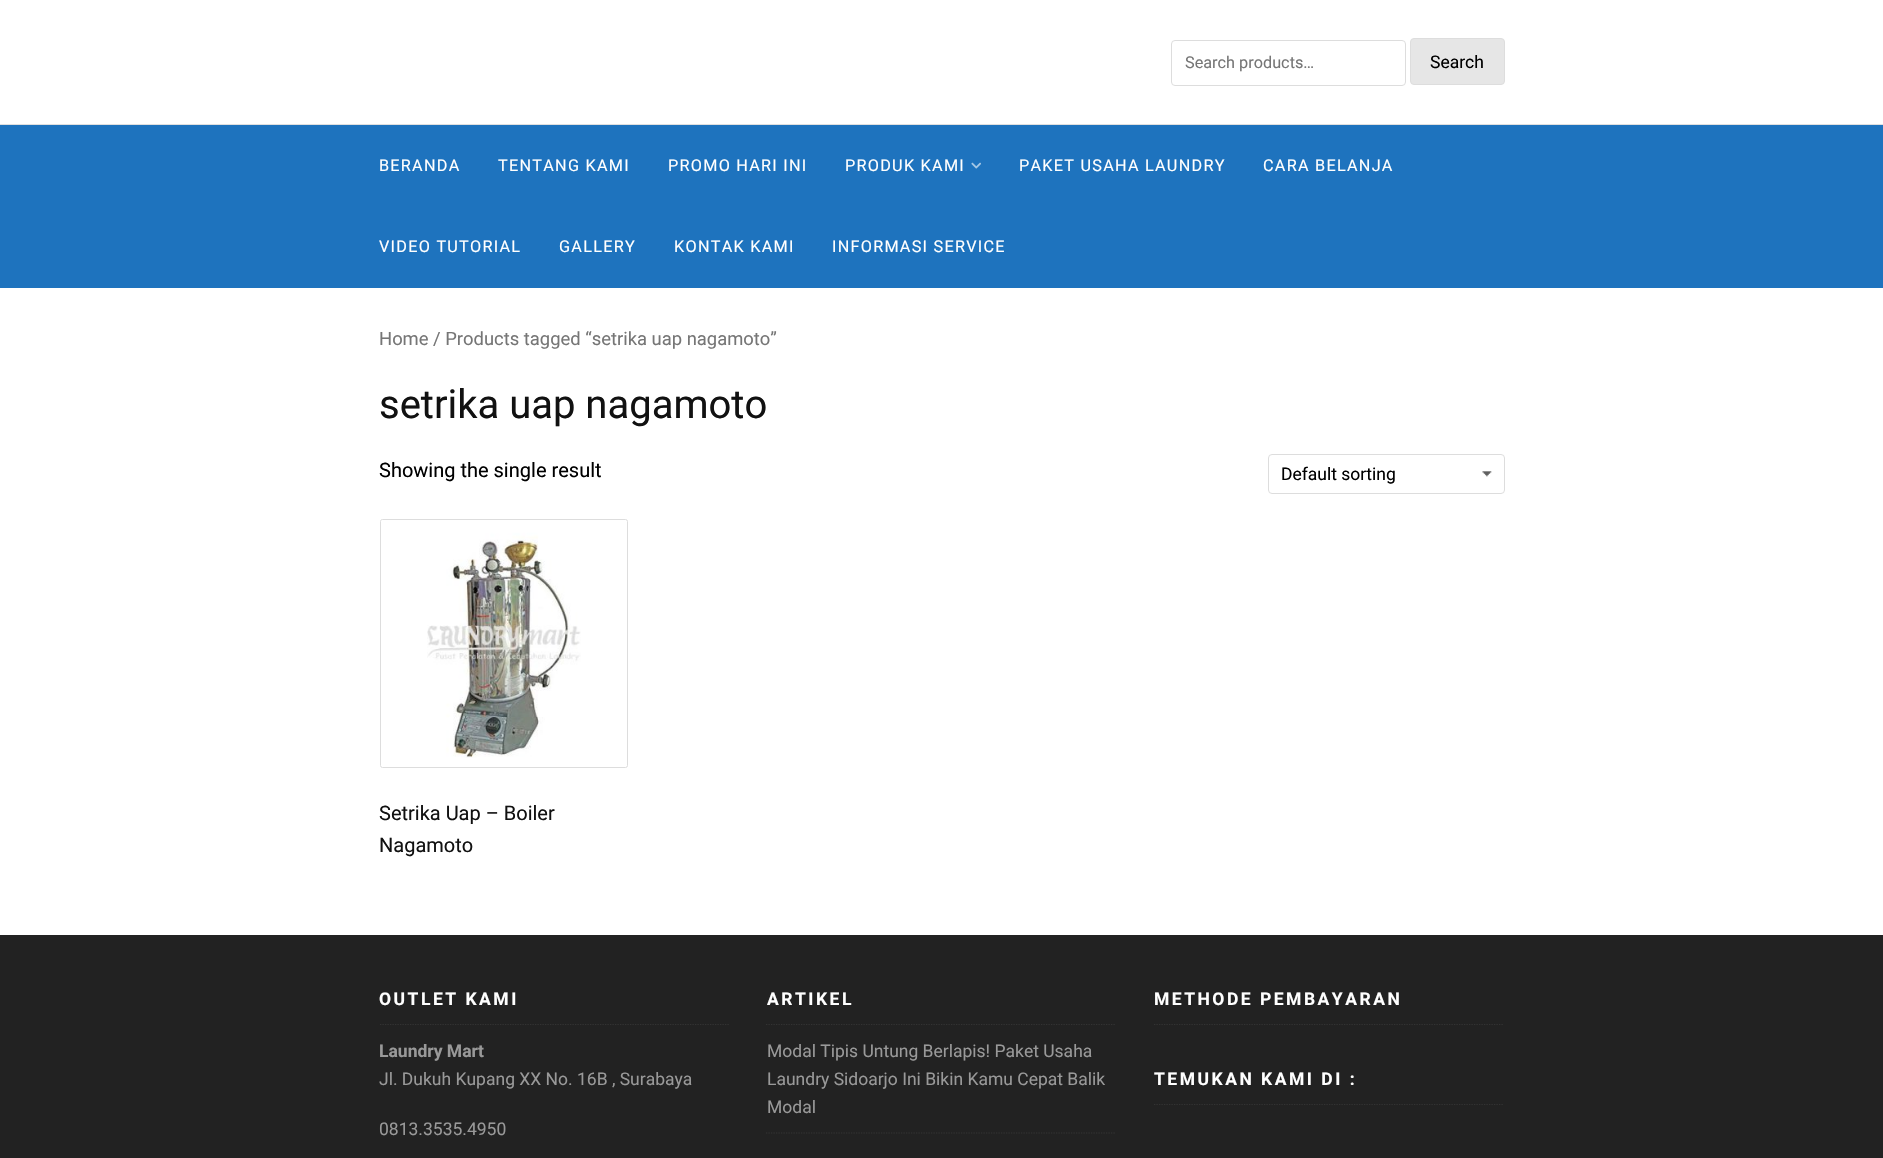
static SkFont makeFont(const char* family, int weight, float size, bool italic = false) {
  SkFontStyle style(weight, SkFontStyle::kNormal_Width,
    italic ? SkFontStyle::kItalic_Slant : SkFontStyle::kUpright_Slant);
  SkFont result(fontMgr->matchFamilyStyle(family, style), size);
  result.setSubpixel(true);
  return result;
}

static void text(SkCanvas* c, const char* s, float x, float y, const SkFont& font, SkColor color) {
  SkPaint ink(SkColor4f::FromColor(color));
  ink.setAntiAlias(true);
  c->drawString(s, x, y, font, ink);
}

static void spacedText(SkCanvas* c, const char* s, float x, float y, const SkFont& font, const SkPaint& ink, float letter, float word) {
  std::vector<SkGlyphID> glyphs(font.countText(s, strlen(s), SkTextEncoding::kUTF8));
  std::vector<float> xs(glyphs.size());
  font.textToGlyphs(s, strlen(s), SkTextEncoding::kUTF8, glyphs);
  font.getXPos(glyphs, xs, x);
  float extra = 0;
  for (size_t i = 0; i < glyphs.size(); i++) {
    xs[i] += extra;
    extra += letter + word * (glyphs[i] == font.unicharToGlyph(' '));
  }
  c->drawTextBlob(SkTextBlob::MakeFromPosHGlyphs(glyphs, xs, y, font), 0, 0, ink);
}

static void box(SkCanvas* c, float l, float t, float r, float b, SkColor color) {
  SkPaint ink(SkColor4f::FromColor(color));
  ink.setAntiAlias(true);
  c->drawRect(SkRect::MakeLTRB(l, t, r, b), ink);
}

static void picture(SkCanvas* c, const char* path, float l, float t, float r, float b) {
  auto image = SkImages::DeferredFromEncodedData(SkData::MakeFromFileName(path));
  c->drawImageRect(image, SkRect::MakeLTRB(l, t, r, b), SkSamplingOptions());
}

void draw(SkCanvas* c) {
  SkPaint paint;
  paint.setAntiAlias(true);
  c->clear(0xffffffff);
  box(c, 0, 124, 1883, 125, 0xffdfdfdf);
  paint.setStyle(SkPaint::kStroke_Style);
  paint.setStrokeWidth(1);
  paint.setColor(0xffdddddd);
  c->drawRoundRect(SkRect::MakeLTRB(1171.5f, 40.5f, 1405.5f, 85.5f), 3.5f, 3.5f, paint);
  SkFont face1 = makeFont("Roboto", 400, 16.25f);
  text(c, "Search products…", 1185, 68, face1, 0xff767676);
  paint.setStyle(SkPaint::kFill_Style);
  paint.setColor(0xffe6e6e6);
  c->drawRoundRect(SkRect::MakeLTRB(1410.5f, 38.5f, 1504.5f, 84.5f), 3.5f, 3.5f, paint);
  paint.setStyle(SkPaint::kStroke_Style);
  paint.setColor(0xffdddddd);
  c->drawRoundRect(SkRect::MakeLTRB(1410.5f, 38.5f, 1504.5f, 84.5f), 3.5f, 3.5f, paint);
  SkFont face2 = makeFont("Roboto", 400, 17.5f);
  text(c, "Search", 1430, 68, face2, 0xff000000);
  box(c, 0, 125, 1883, 288, 0xff1e73be);
  paint.setStyle(SkPaint::kFill_Style);
  paint.setColor(0xffffffff);
  spacedText(c, "BERANDA", 379, 171, face1, paint, 1.25f, 0);
  spacedText(c, "TENTANG KAMI", 498, 171, face1, paint, 1.25f, 0);
  spacedText(c, "PROMO HARI INI", 668, 171, face1, paint, 1.25f, 0);
  spacedText(c, "PRODUK KAMI", 845, 171, face1, paint, 1.25f, 0);
  picture(c, "img_01.png", 971, 162, 981, 169);
  spacedText(c, "PAKET USAHA LAUNDRY", 1019, 171, face1, paint, 1.25f, 0);
  spacedText(c, "CARA BELANJA", 1263, 171, face1, paint, 1.25f, 0);
  spacedText(c, "VIDEO TUTORIAL", 379, 252, face1, paint, 1.25f, 0);
  spacedText(c, "GALLERY", 559, 252, face1, paint, 1.25f, 0);
  spacedText(c, "KONTAK KAMI", 674, 252, face1, paint, 1.25f, 0);
  spacedText(c, "INFORMASI SERVICE", 832, 252, face1, paint, 1.25f, 0);
  SkFont face3 = makeFont("Roboto", 400, 18.4f);
  text(c, "Home / Products tagged “setrika uap nagamoto”", 379, 345, face3, 0xff767676);
  SkFont face4 = makeFont("Roboto", 400, 40);
  text(c, "setrika uap nagamoto", 379, 418, face4, 0xff111111);
  SkFont face5 = makeFont("Roboto", 400, 20);
  text(c, "Showing the single result", 379, 477, face5, 0xff000000);
  picture(c, "img_02.png", 1482, 471, 1492, 477);
  paint.setStyle(SkPaint::kStroke_Style);
  paint.setColor(0xffdddddd);
  c->drawRoundRect(SkRect::MakeLTRB(1268.5f, 454.5f, 1504.5f, 493.5f), 3.5f, 3.5f, paint);
  text(c, "Default sorting", 1281, 480, face2, 0xff000000);
  c->drawRoundRect(SkRect::MakeLTRB(380.5f, 519.5f, 627.5f, 767.5f), 2, 2, paint);
  picture(c, "img_03.png", 381, 520, 581, 758);
  text(c, "Setrika Uap – Boiler", 379, 820, face5, 0xff111111);
  text(c, "Nagamoto", 379, 852, face5, 0xff111111);
  box(c, 0, 935, 1883, 1158, 0xff222222);
  paint.setStrokeWidth(1.2f);
  paint.setColor(0xff333333);
  paint.setPathEffect(SkDashPathEffect::Make({{1.25f, 1.25f}}, 0));
  c->drawPath(SkPathBuilder().moveTo(380, 1024.5f).lineTo(729, 1024.5f).detach(), paint);
  paint.setPathEffect(nullptr);
  SkFont face6 = makeFont("Roboto", 700, 17.5f);
  paint.setStyle(SkPaint::kFill_Style);
  paint.setColor(0xffffffff);
  spacedText(c, "OUTLET KAMI", 379, 1005, face6, paint, 2.5f, 0);
  text(c, "Laundry Mart", 379, 1057, face6, 0xff999999);
  text(c, "Jl. Dukuh Kupang XX No. 16B , Surabaya", 379, 1085, face2, 0xff999999);
  text(c, "0813.3535.4950", 379, 1135, face2, 0xff999999);
  paint.setStyle(SkPaint::kStroke_Style);
  paint.setColor(0xff333333);
  paint.setPathEffect(SkDashPathEffect::Make({{1.25f, 1.25f}}, 0));
  c->drawPath(SkPathBuilder().moveTo(766, 1024.5f).lineTo(1116, 1024.5f).detach(), paint);
  paint.setPathEffect(nullptr);
  paint.setStyle(SkPaint::kFill_Style);
  paint.setColor(0xffffffff);
  spacedText(c, "ARTIKEL", 767, 1005, face6, paint, 2.5f, 0);
  paint.setStyle(SkPaint::kStroke_Style);
  paint.setColor(0xff333333);
  paint.setPathEffect(SkDashPathEffect::Make({{1.25f, 1.25f}}, 0));
  c->drawPath(SkPathBuilder().moveTo(766, 1133).lineTo(1116, 1133).detach(), paint);
  paint.setPathEffect(nullptr);
  text(c, "Modal Tipis Untung Berlapis! Paket Usaha", 767, 1057, face2, 0xff999999);
  text(c, "Laundry Sidoarjo Ini Bikin Kamu Cepat Balik", 767, 1085, face2, 0xff999999);
  text(c, "Modal", 767, 1113, face2, 0xff999999);
  paint.setPathEffect(SkDashPathEffect::Make({{1.25f, 1.25f}}, 0));
  c->drawPath(SkPathBuilder().moveTo(1154, 1024.5f).lineTo(1504, 1024.5f).detach(), paint);
  paint.setPathEffect(nullptr);
  paint.setStyle(SkPaint::kFill_Style);
  paint.setColor(0xffffffff);
  spacedText(c, "METHODE PEMBAYARAN", 1154, 1005, face6, paint, 2.5f, 0);
  paint.setStyle(SkPaint::kStroke_Style);
  paint.setColor(0xff333333);
  paint.setPathEffect(SkDashPathEffect::Make({{1.25f, 1.25f}}, 0));
  c->drawPath(SkPathBuilder().moveTo(1154, 1104.5f).lineTo(1504, 1104.5f).detach(), paint);
  paint.setPathEffect(nullptr);
  paint.setStyle(SkPaint::kFill_Style);
  paint.setColor(0xffffffff);
  spacedText(c, "TEMUKAN KAMI DI :", 1154, 1085, face6, paint, 2.5f, 0);
}
